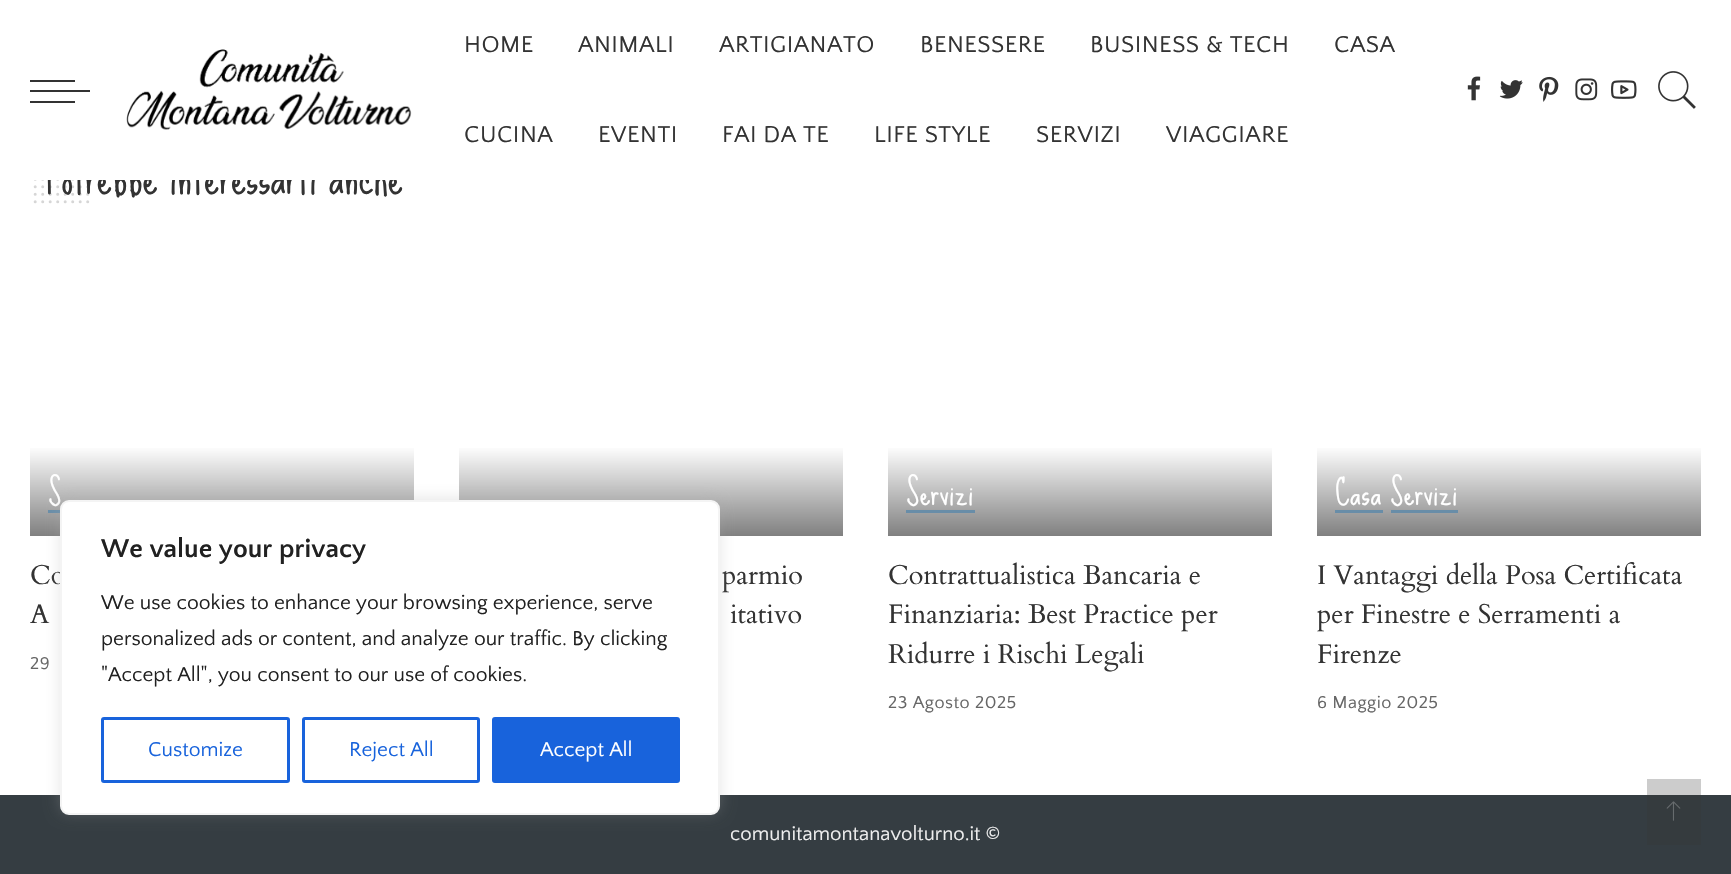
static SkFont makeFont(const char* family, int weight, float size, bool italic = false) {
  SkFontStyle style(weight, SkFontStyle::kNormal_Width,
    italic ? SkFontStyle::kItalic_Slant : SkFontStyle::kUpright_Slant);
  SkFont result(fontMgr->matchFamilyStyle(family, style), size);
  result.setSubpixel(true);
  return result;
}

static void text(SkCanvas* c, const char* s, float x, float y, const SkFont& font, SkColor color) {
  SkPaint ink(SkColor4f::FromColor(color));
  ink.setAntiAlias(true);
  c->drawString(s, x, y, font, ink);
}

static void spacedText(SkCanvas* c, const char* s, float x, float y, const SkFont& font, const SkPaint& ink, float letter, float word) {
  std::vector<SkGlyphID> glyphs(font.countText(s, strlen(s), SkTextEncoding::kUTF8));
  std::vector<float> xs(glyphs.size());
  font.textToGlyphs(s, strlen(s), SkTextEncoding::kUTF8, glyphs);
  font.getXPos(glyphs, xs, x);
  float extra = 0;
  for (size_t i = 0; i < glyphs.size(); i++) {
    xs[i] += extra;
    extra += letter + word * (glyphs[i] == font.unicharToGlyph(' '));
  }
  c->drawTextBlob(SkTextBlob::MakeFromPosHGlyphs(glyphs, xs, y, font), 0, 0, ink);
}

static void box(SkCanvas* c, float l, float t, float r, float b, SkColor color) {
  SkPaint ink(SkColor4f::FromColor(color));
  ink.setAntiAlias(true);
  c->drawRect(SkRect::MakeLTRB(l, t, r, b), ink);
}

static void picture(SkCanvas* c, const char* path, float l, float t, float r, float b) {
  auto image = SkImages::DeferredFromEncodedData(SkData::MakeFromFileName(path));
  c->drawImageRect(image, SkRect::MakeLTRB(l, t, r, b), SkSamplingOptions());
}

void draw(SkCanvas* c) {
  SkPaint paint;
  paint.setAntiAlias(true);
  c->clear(0xffffffff);
  box(c, 1647, 779, 1701, 795, 0xffcccccc);
  SkFont face1 = makeFont("Sue Ellen Francisco", 400, 48);
  text(c, "Potrebbe interessarti anche", 45, 194, face1, 0xff333333);
  paint.setStyle(SkPaint::kStroke_Style);
  paint.setStrokeWidth(3);
  paint.setStrokeCap(SkPaint::kRound_Cap);
  paint.setColor(0x33333333);
  paint.setPathEffect(SkDashPathEffect::Make({{0, 7.5f}}, 0));
  c->drawPath(SkPathBuilder().moveTo(35.2f, 179.2f).lineTo(88.1f, 179.2f).moveTo(35.2f, 186.8f).lineTo(88.1f, 186.8f).moveTo(35.2f, 194.2f).lineTo(88.1f, 194.2f).detach(), paint);
  paint.setPathEffect(nullptr);
  box(c, 33, 148, 397, 180, 0xffffffff);
  box(c, 30, 90, 90, 92, 0xff333333);
  box(c, 30, 80, 75, 82, 0xff333333);
  box(c, 30, 101, 75, 103, 0xff333333);
  picture(c, "img_01.png", 126, 49, 412, 130);
  SkFont face2 = makeFont("Quattrocento Sans", 400, 24);
  paint.setStyle(SkPaint::kFill_Style);
  paint.setColor(0xff333333);
  spacedText(c, "HOME", 464, 52, face2, paint, 0.5f, 0);
  spacedText(c, "ANIMALI", 578, 52, face2, paint, 0.5f, 0);
  spacedText(c, "ARTIGIANATO", 719, 52, face2, paint, 0.5f, 0);
  spacedText(c, "BENESSERE", 920, 52, face2, paint, 0.5f, 0);
  spacedText(c, "BUSINESS & TECH", 1090, 52, face2, paint, 0.5f, 0);
  spacedText(c, "CASA", 1334, 52, face2, paint, 0.5f, 0);
  spacedText(c, "CUCINA", 464, 142, face2, paint, 0.5f, 0);
  spacedText(c, "EVENTI", 598, 142, face2, paint, 0.5f, 0);
  spacedText(c, "FAI DA TE", 722, 142, face2, paint, 0.5f, 0);
  spacedText(c, "LIFE STYLE", 874, 142, face2, paint, 0.5f, 0);
  spacedText(c, "SERVIZI", 1036, 142, face2, paint, 0.5f, 0);
  spacedText(c, "VIAGGIARE", 1166, 142, face2, paint, 0.5f, 0);
  picture(c, "img_02.png", 1467, 76, 1481, 101);
  picture(c, "img_03.png", 1499, 80, 1523, 99);
  picture(c, "img_04.png", 1539, 76, 1559, 102);
  picture(c, "img_05.png", 1575, 78, 1598, 101);
  picture(c, "img_06.png", 1611, 80, 1637, 99);
  picture(c, "img_07.png", 1658, 71, 1696, 109);
  paint.setStyle(SkPaint::kStroke_Style);
  paint.setColor(0xffd6d6d6);
  paint.setPathEffect(SkDashPathEffect::Make({{0, 7.5f}}, 0));
  c->drawPath(SkPathBuilder().moveTo(35.2f, 201.8f).lineTo(88.1f, 201.8f).detach(), paint);
  paint.setPathEffect(nullptr);
  paint.setStyle(SkPaint::kFill_Style);
  {
    const SkColor colors[] = {0xffffffff, 0xff808080};
    const float stops[] = {0, 1};
    const SkPoint ends[] = {{222, 446}, {222, 536}};
    paint.setShader(SkGradientShader::MakeLinear(ends, colors, stops, 2, SkTileMode::kClamp));
    paint.setAlpha(255);
  }
  c->drawRect(SkRect::MakeLTRB(30, 448, 414, 536), paint);
  box(c, 48, 510, 60, 513, 0xff688da8);
  SkFont face3 = makeFont("Sue Ellen Francisco", 400, 34);
  paint.setShader(nullptr);
  paint.setColor(0xffffffff);
  spacedText(c, "S", 48, 505, face3, paint, 0.5f, 0);
  SkFont face4 = makeFont("Cardo", 400, 27);
  text(c, "Co", 30, 584, face4, 0xff333333);
  text(c, "A", 30, 623, face4, 0xff333333);
  SkFont face5 = makeFont("Quattrocento Sans", 400, 18);
  paint.setColor(0xff666666);
  spacedText(c, "29", 30, 669, face5, paint, 0.5f, 0);
  {
    const SkColor colors[] = {0xffffffff, 0xff808080};
    const float stops[] = {0, 1};
    const SkPoint ends[] = {{651, 446}, {651, 536}};
    paint.setShader(SkGradientShader::MakeLinear(ends, colors, stops, 2, SkTileMode::kClamp));
    paint.setAlpha(255);
  }
  c->drawRect(SkRect::MakeLTRB(459, 448, 843, 536), paint);
  text(c, "parmio", 722, 584, face4, 0xff333333);
  text(c, "itativo", 730, 623, face4, 0xff333333);
  {
    const SkColor colors[] = {0xffffffff, 0xff808080};
    const float stops[] = {0, 1};
    const SkPoint ends[] = {{1080, 446}, {1080, 536}};
    paint.setShader(SkGradientShader::MakeLinear(ends, colors, stops, 2, SkTileMode::kClamp));
    paint.setAlpha(255);
  }
  c->drawRect(SkRect::MakeLTRB(888, 448, 1272, 536), paint);
  box(c, 906, 510, 975, 513, 0xff688da8);
  paint.setShader(nullptr);
  paint.setColor(0xffffffff);
  spacedText(c, "Servizi", 906, 505, face3, paint, 0.5f, 0);
  text(c, "Contrattualistica Bancaria e", 888, 584, face4, 0xff333333);
  text(c, "Finanziaria: Best Practice per", 888, 623, face4, 0xff333333);
  text(c, "Ridurre i Rischi Legali", 888, 663, face4, 0xff333333);
  paint.setColor(0xff666666);
  spacedText(c, "23 Agosto 2025", 888, 708, face5, paint, 0.5f, 0);
  {
    const SkColor colors[] = {0xffffffff, 0xff808080};
    const float stops[] = {0, 1};
    const SkPoint ends[] = {{1509, 446}, {1509, 536}};
    paint.setShader(SkGradientShader::MakeLinear(ends, colors, stops, 2, SkTileMode::kClamp));
    paint.setAlpha(255);
  }
  c->drawRect(SkRect::MakeLTRB(1317, 448, 1701, 536), paint);
  box(c, 1335, 510, 1383, 513, 0xff688da8);
  paint.setShader(nullptr);
  paint.setColor(0xffffffff);
  spacedText(c, "Casa", 1335, 505, face3, paint, 0.5f, 0);
  box(c, 1391, 510, 1458, 513, 0xff688da8);
  spacedText(c, "Servizi", 1390, 505, face3, paint, 0.5f, 0);
  text(c, "I Vantaggi della Posa Certificata", 1317, 584, face4, 0xff333333);
  text(c, "per Finestre e Serramenti a", 1317, 623, face4, 0xff333333);
  text(c, "Firenze", 1317, 663, face4, 0xff333333);
  paint.setColor(0xff666666);
  spacedText(c, "6 Maggio 2025", 1317, 708, face5, paint, 0.5f, 0);
  box(c, 0, 795, 1731, 874, 0xff353d42);
  box(c, 1647, 795, 1701, 845, 0xff353b3e);
  SkFont face6 = makeFont("Quattrocento Sans", 400, 20.4f);
  text(c, "comunitamontanavolturno.it ©", 730, 840, face6, 0xffefefef);
  paint.setColor(0x4dacabab);
  paint.setMaskFilter(SkMaskFilter::MakeBlur(kNormal_SkBlurStyle, 7.5f));
  c->drawRoundRect(SkRect::MakeLTRB(60, 498, 720, 813), 9, 9, paint);
  paint.setMaskFilter(nullptr);
  paint.setColor(0xffffffff);
  c->drawRoundRect(SkRect::MakeLTRB(61, 501, 719, 814), 8, 8, paint);
  paint.setStyle(SkPaint::kStroke_Style);
  paint.setStrokeWidth(2);
  paint.setStrokeCap(SkPaint::kButt_Cap);
  paint.setColor(0xfff4f4f4);
  c->drawRoundRect(SkRect::MakeLTRB(61, 501, 719, 814), 8, 8, paint);
  SkFont face7 = makeFont("Quattrocento Sans", 700, 27);
  text(c, "We value your privacy", 101, 557, face7, 0xff212121);
  SkFont face8 = makeFont("Quattrocento Sans", 400, 21);
  text(c, "We use cookies to enhance your browsing experience, serve", 101, 609, face8, 0xff212121);
  text(c, "personalized ads or content, and analyze our traffic. By clicking", 101, 645, face8, 0xff212121);
  text(c, "\"Accept All\", you consent to our use of cookies.", 101, 681, face8, 0xff212121);
  paint.setStrokeWidth(3);
  paint.setColor(0xff1863dc);
  c->drawRoundRect(SkRect::MakeLTRB(102.5f, 718.5f, 288.5f, 781.5f), 1.5f, 1.5f, paint);
  text(c, "Customize", 148, 756, face8, 0xff1863dc);
  c->drawRoundRect(SkRect::MakeLTRB(303.5f, 718.5f, 478.5f, 781.5f), 1.5f, 1.5f, paint);
  text(c, "Reject All", 349, 756, face8, 0xff1863dc);
  paint.setStyle(SkPaint::kFill_Style);
  c->drawRoundRect(SkRect::MakeLTRB(493.5f, 718.5f, 678.5f, 781.5f), 1.5f, 1.5f, paint);
  paint.setStyle(SkPaint::kStroke_Style);
  c->drawRoundRect(SkRect::MakeLTRB(493.5f, 718.5f, 678.5f, 781.5f), 1.5f, 1.5f, paint);
  text(c, "Accept All", 540, 756, face8, 0xffffffff);
  picture(c, "img_08.png", 1666, 801, 1681, 821);
}
